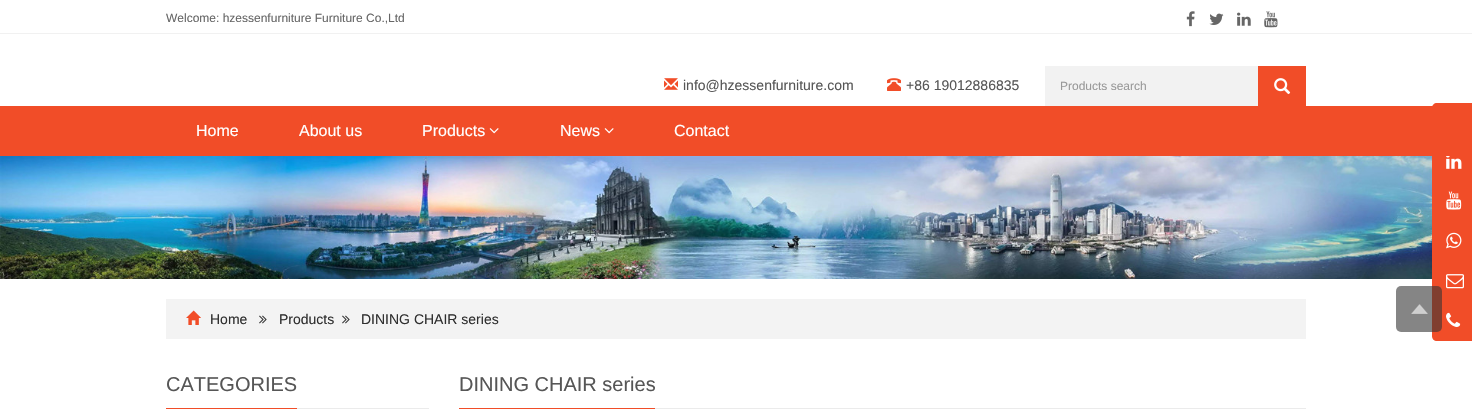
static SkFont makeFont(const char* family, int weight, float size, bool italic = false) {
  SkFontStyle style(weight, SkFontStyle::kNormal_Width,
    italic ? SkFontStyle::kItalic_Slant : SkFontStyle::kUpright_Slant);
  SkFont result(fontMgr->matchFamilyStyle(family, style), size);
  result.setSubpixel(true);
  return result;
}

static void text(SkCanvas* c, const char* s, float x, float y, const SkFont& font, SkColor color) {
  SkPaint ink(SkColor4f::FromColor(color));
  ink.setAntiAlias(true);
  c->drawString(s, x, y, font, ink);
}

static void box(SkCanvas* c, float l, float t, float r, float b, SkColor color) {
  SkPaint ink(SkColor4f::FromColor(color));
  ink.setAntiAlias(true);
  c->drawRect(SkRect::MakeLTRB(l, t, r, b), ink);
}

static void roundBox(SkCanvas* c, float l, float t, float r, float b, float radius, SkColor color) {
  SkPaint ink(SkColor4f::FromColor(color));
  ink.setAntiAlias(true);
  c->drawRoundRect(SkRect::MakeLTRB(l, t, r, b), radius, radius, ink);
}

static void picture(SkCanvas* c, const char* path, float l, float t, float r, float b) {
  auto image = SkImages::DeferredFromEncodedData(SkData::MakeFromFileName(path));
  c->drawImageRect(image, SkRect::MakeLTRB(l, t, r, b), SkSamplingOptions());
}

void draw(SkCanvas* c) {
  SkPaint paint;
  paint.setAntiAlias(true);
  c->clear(0xffffffff);
  box(c, 0, 33, 1472, 34, 0xfff1f1f1);
  SkFont face1 = makeFont("Liberation Sans", 400, 12);
  text(c, "Welcome: hzessenfurniture Furniture Co.,Ltd", 166, 22, face1, 0xff666666);
  picture(c, "img_01.png", 1186, 11, 1195, 27);
  picture(c, "img_02.png", 1209, 13, 1224, 25);
  picture(c, "img_03.png", 1237, 12, 1251, 26);
  picture(c, "img_04.png", 1264, 11, 1278, 28);
  picture(c, "img_05.png", 664, 78, 678, 90);
  SkFont face2 = makeFont("Liberation Sans", 400, 14);
  text(c, "info@hzessenfurniture.com", 683, 90, face2, 0xff565656);
  picture(c, "img_06.png", 887, 78, 901, 91);
  text(c, "+86 19012886835", 906, 90, face2, 0xff565656);
  box(c, 1045, 66, 1258, 106, 0xfff2f2f2);
  text(c, "Products search", 1060, 90, face1, 0xff999999);
  box(c, 1258, 66, 1306, 106, 0xfff14d28);
  picture(c, "img_07.png", 1274, 78, 1291, 95);
  paint.setColor(0xfff14d28);
  c->drawPath(SkPathBuilder().moveTo(1437, 103).lineTo(1472, 103).lineTo(1472, 341).lineTo(1437, 341).cubicTo(1434, 341, 1432, 339, 1432, 336).lineTo(1432, 108).cubicTo(1432, 105, 1434, 103, 1437, 103).close().detach(), paint);
  box(c, 0, 106, 1433, 156, 0xfff14d28);
  SkFont face3 = makeFont("Liberation Sans", 400, 16);
  text(c, "Home", 196, 136, face3, 0xffffffff);
  text(c, "About us", 299, 136, face3, 0xffffffff);
  text(c, "Products", 422, 136, face3, 0xffffffff);
  picture(c, "img_08.png", 489, 128, 499, 134);
  text(c, "News", 560, 136, face3, 0xffffffff);
  picture(c, "img_08.png", 604, 128, 614, 134);
  text(c, "Contact", 674, 136, face3, 0xffffffff);
  picture(c, "img_09.png", 0, 156, 1432, 279);
  picture(c, "img_10.png", 1446, 156, 1462, 169);
  picture(c, "img_11.png", 1446, 191, 1462, 210);
  picture(c, "img_12.png", 1446, 232, 1462, 249);
  picture(c, "img_13.png", 1446, 274, 1464, 289);
  picture(c, "img_14.png", 1446, 312, 1461, 327);
  box(c, 166, 299, 1306, 339, 0xfff3f3f3);
  picture(c, "img_15.png", 186, 310, 201, 325);
  text(c, "Home", 210, 324, face2, 0xff2f2f2f);
  picture(c, "img_16.png", 259, 315, 267, 324);
  text(c, "Products", 279, 324, face2, 0xff2f2f2f);
  picture(c, "img_16.png", 342, 315, 350, 324);
  text(c, "DINING CHAIR series", 361, 324, face2, 0xff2f2f2f);
  roundBox(c, 1396, 286, 1442, 332, 5, 0x99333333);
  picture(c, "img_17.png", 1411, 304, 1428, 314);
  box(c, 297, 408, 429, 409, 0xffebebeb);
  box(c, 166, 408, 297, 409, 0xfff14d28);
  SkFont face4 = makeFont("Liberation Sans", 400, 20);
  text(c, "CATEGORIES", 166, 391, face4, 0xff565656);
  box(c, 655, 408, 1306, 409, 0xffebebeb);
  box(c, 459, 408, 655, 409, 0xfff14d28);
  text(c, "DINING CHAIR series", 459, 391, face4, 0xff565656);
}
